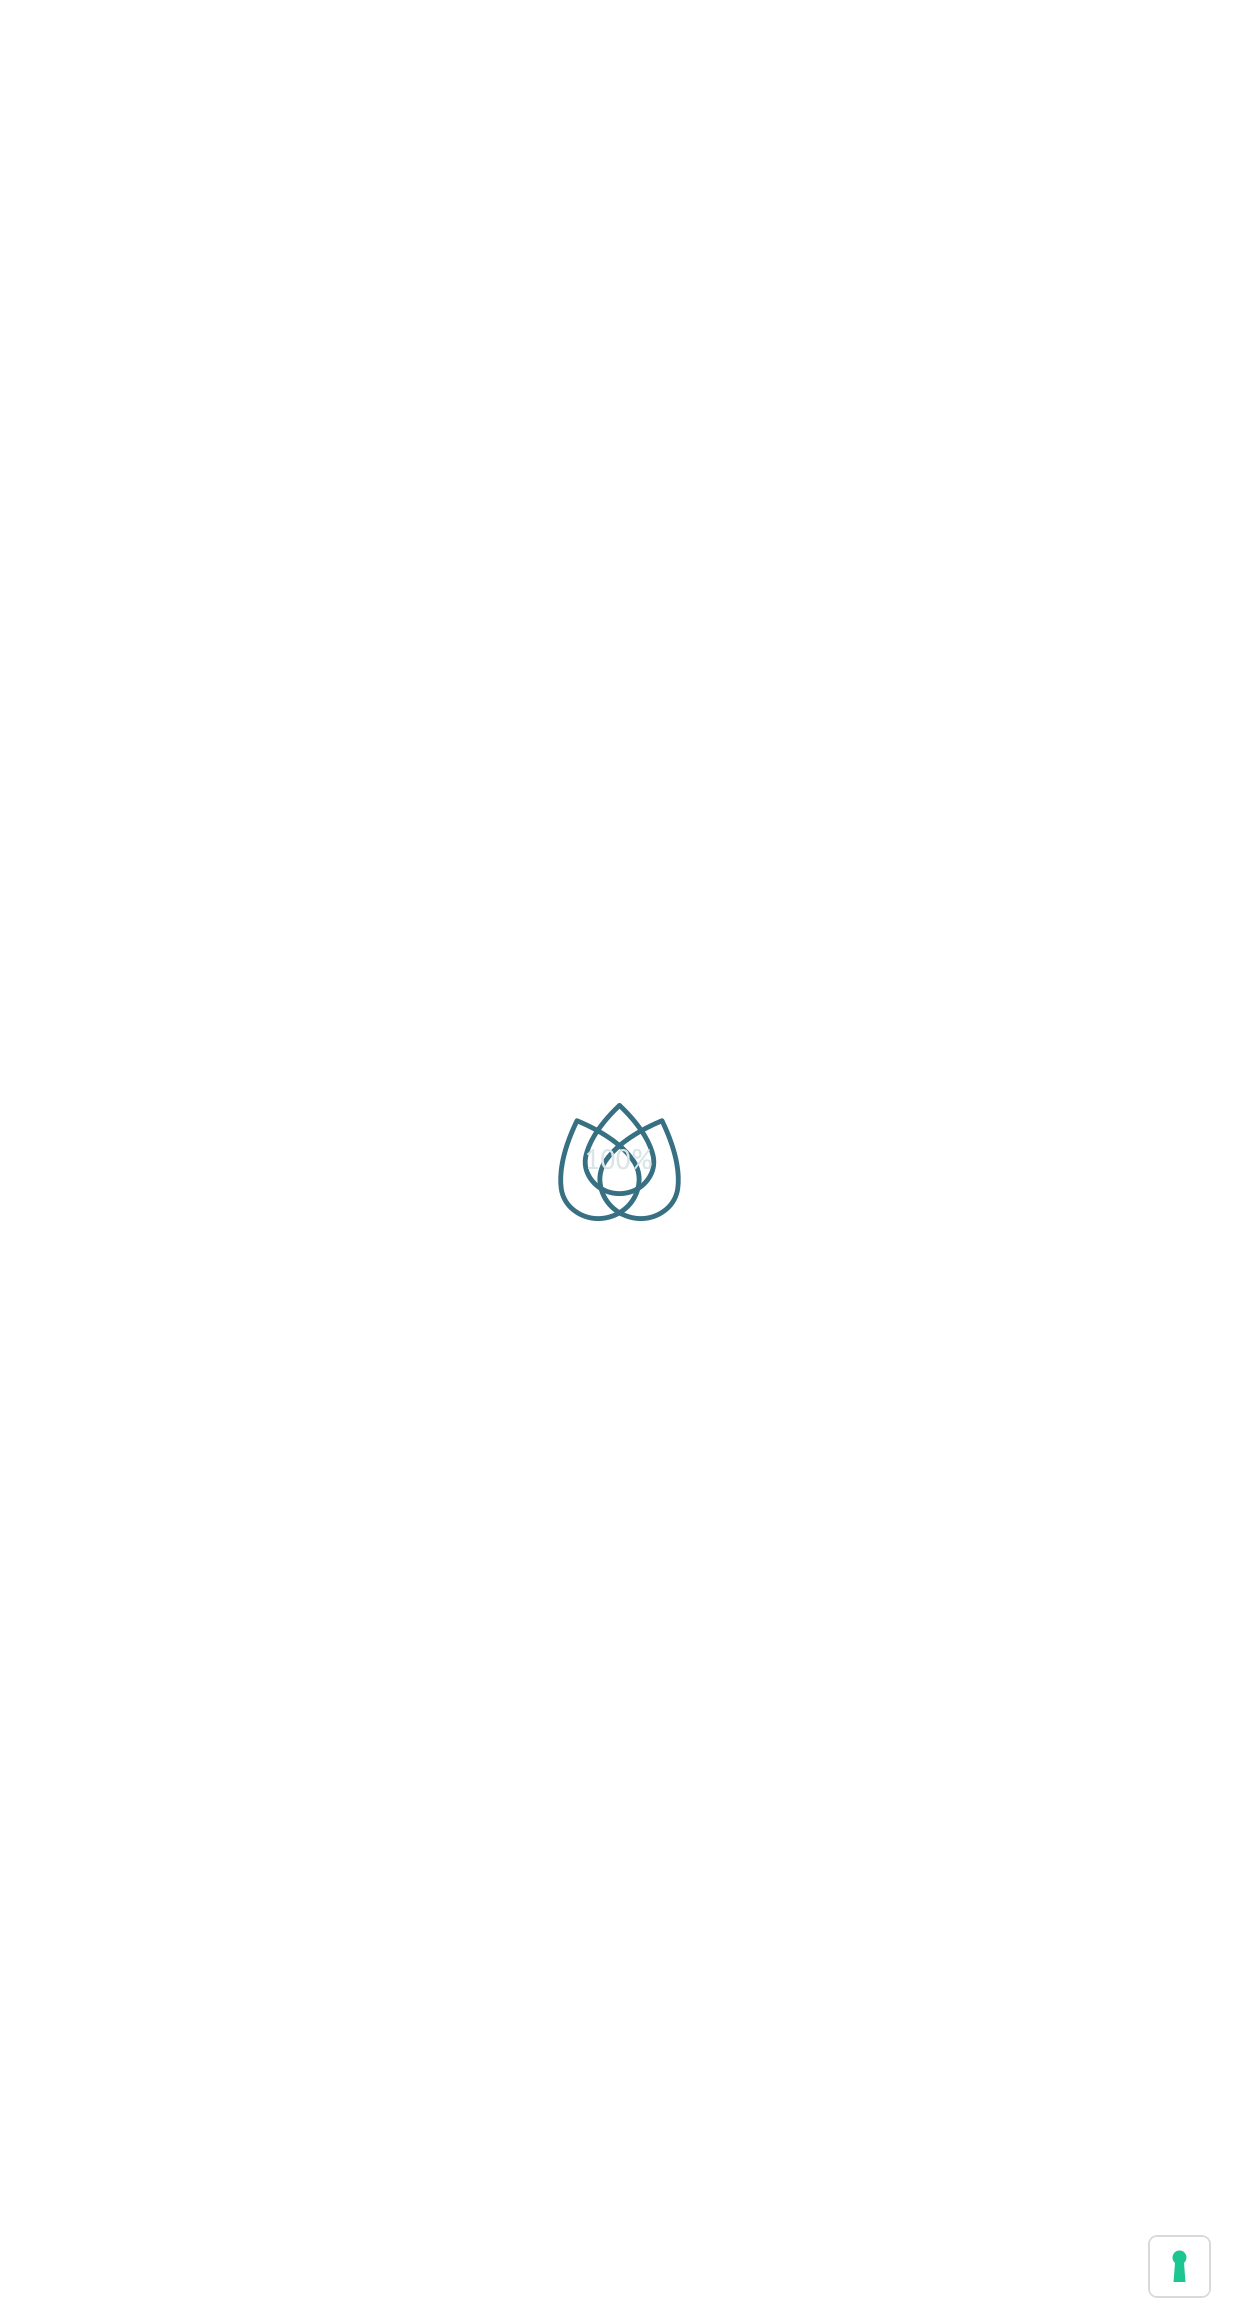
static SkFont makeFont(const char* family, int weight, float size, bool italic = false) {
  SkFontStyle style(weight, SkFontStyle::kNormal_Width,
    italic ? SkFontStyle::kItalic_Slant : SkFontStyle::kUpright_Slant);
  SkFont result(fontMgr->matchFamilyStyle(family, style), size);
  result.setSubpixel(true);
  return result;
}

static void text(SkCanvas* c, const char* s, float x, float y, const SkFont& font, SkColor color) {
  SkPaint ink(SkColor4f::FromColor(color));
  ink.setAntiAlias(true);
  c->drawString(s, x, y, font, ink);
}

static void roundBox(SkCanvas* c, float l, float t, float r, float b, float radius, SkColor color) {
  SkPaint ink(SkColor4f::FromColor(color));
  ink.setAntiAlias(true);
  c->drawRoundRect(SkRect::MakeLTRB(l, t, r, b), radius, radius, ink);
}

static void picture(SkCanvas* c, const char* path, float l, float t, float r, float b) {
  auto image = SkImages::DeferredFromEncodedData(SkData::MakeFromFileName(path));
  c->drawImageRect(image, SkRect::MakeLTRB(l, t, r, b), SkSamplingOptions());
}

void draw(SkCanvas* c) {
  SkPaint paint;
  paint.setAntiAlias(true);
  c->clear(0xffffffff);
  picture(c, "img_01.png", 558, 1103, 681, 1222);
  SkFont face1 = makeFont("PT Sans", 400, 28);
  text(c, "100%", 585, 1169, face1, 0xffdae5e8);
  paint.setStyle(SkPaint::kStroke_Style);
  paint.setStrokeWidth(2);
  paint.setColor(0xffd9d9d9);
  c->drawRoundRect(SkRect::MakeLTRB(1149, 2236, 1210, 2297), 8, 8, paint);
  roundBox(c, 1150, 2237, 1209, 2296, 7, 0xffffffff);
  paint.setStyle(SkPaint::kFill_Style);
  paint.setColor(0xff1cc691);
  c->drawPath(SkPathBuilder(SkPathFillType::kEvenOdd).moveTo(1179.5f, 2250.5f).cubicTo(1186, 2250.5f, 1189, 2258.5f, 1184, 2263).lineTo(1185.5f, 2282).lineTo(1173.5f, 2282).lineTo(1175, 2263).cubicTo(1170, 2258.5f, 1173, 2250.5f, 1179.5f, 2250.5f).close().detach(), paint);
}
